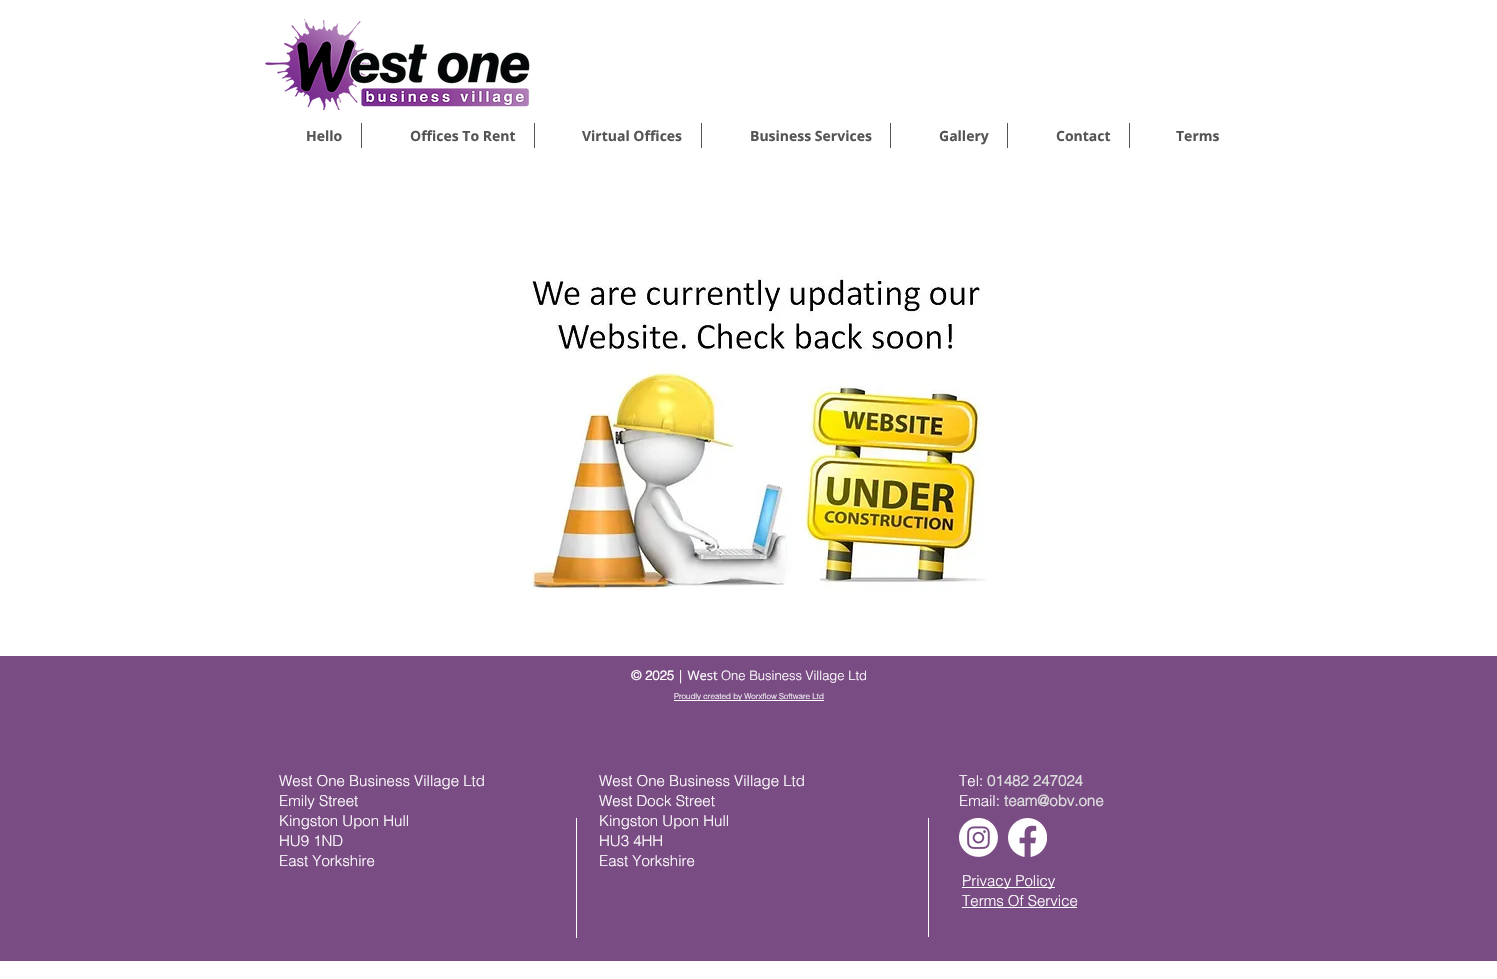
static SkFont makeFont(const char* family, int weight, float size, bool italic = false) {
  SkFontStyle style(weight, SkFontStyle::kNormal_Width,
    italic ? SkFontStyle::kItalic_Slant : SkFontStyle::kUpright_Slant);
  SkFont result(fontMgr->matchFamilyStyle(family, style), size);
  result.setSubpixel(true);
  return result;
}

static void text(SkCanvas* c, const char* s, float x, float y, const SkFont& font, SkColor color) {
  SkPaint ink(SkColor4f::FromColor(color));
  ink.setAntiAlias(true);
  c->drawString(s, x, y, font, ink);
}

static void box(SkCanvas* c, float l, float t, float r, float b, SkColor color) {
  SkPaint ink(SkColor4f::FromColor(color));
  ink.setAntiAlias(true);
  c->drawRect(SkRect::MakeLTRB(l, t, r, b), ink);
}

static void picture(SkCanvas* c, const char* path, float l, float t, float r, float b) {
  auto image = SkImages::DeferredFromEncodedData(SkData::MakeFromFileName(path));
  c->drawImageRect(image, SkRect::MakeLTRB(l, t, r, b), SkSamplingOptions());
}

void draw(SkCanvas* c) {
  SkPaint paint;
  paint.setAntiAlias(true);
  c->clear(0xffffffff);
  picture(c, "img_01.png", 265, 19, 530, 110);
  SkFont face1 = makeFont("Open Sans", 700, 14);
  text(c, "Hello", 306, 141, face1, 0xff555353);
  box(c, 361, 123, 362, 148, 0xff555353);
  text(c, "Offices To Rent", 410, 141, face1, 0xff555353);
  box(c, 534, 123, 535, 148, 0xff555353);
  text(c, "Virtual Offices", 582, 141, face1, 0xff555353);
  box(c, 701, 123, 702, 148, 0xff555353);
  text(c, "Business Services", 750, 141, face1, 0xff555353);
  box(c, 890, 123, 891, 148, 0xff555353);
  text(c, "Gallery", 939, 141, face1, 0xff555353);
  box(c, 1007, 123, 1008, 148, 0xff555353);
  text(c, "Contact", 1056, 141, face1, 0xff555353);
  box(c, 1129, 123, 1130, 148, 0xff555353);
  text(c, "Terms", 1176, 141, face1, 0xff555353);
  picture(c, "img_02.png", 528, 276, 987, 590);
  box(c, 0, 656, 1497, 961, 0xff7a4c84);
  SkFont face2 = makeFont("helvetica", 700, 13);
  text(c, "© 2025", 631, 680, face2, 0xffffffff);
  SkFont face3 = makeFont("Open Sans", 400, 13);
  text(c, "| West", 677, 680, face3, 0xffffffff);
  SkFont face4 = makeFont("helvetica", 300, 13);
  text(c, "One Business Village Ltd", 721, 680, face4, 0xffffffff);
  box(c, 674, 700, 824, 701, 0xffffffff);
  SkFont face5 = makeFont("helvetica", 300, 8);
  text(c, "Proudly created by Worxflow Software Ltd", 674, 699, face5, 0xffffffff);
  SkFont face6 = makeFont("helvetica", 300, 15);
  text(c, "West One Business Village Ltd", 279, 786, face6, 0xffffffff);
  text(c, "Emily Street", 279, 806, face6, 0xffffffff);
  text(c, "Kingston Upon Hull", 279, 826, face6, 0xffffffff);
  text(c, "HU9 1ND", 279, 846, face6, 0xffffffff);
  text(c, "East Yorkshire", 279, 866, face6, 0xffffffff);
  text(c, "West One Business Village Ltd", 599, 786, face6, 0xffffffff);
  text(c, "West Dock Street", 599, 806, face6, 0xffffffff);
  text(c, "Kingston Upon Hull", 599, 826, face6, 0xffffffff);
  text(c, "HU3 4HH", 599, 846, face6, 0xffffffff);
  text(c, "East Yorkshire", 599, 866, face6, 0xffffffff);
  text(c, "Tel:", 959, 786, face6, 0xffffffff);
  SkFont face7 = makeFont("helvetica", 700, 15);
  text(c, "01482 247024", 987, 786, face7, 0xffdbdbdb);
  text(c, "Email:", 959, 806, face6, 0xffffffff);
  text(c, "team@obv.one", 1004, 806, face7, 0xffdbdbdb);
  box(c, 576, 818, 577, 938, 0xffffffff);
  box(c, 928, 818, 929, 937, 0xffffffff);
  picture(c, "img_03.png", 959, 818, 998, 857);
  picture(c, "img_04.png", 1008, 818, 1047, 857);
  box(c, 962, 887, 1055, 888, 0xffffffff);
  text(c, "Privacy Policy", 962, 886, face6, 0xffffffff);
  text(c, "Terms Of Service", 962, 906, face6, 0xffffffff);
  box(c, 962, 907, 1077, 908, 0xffffffff);
}
